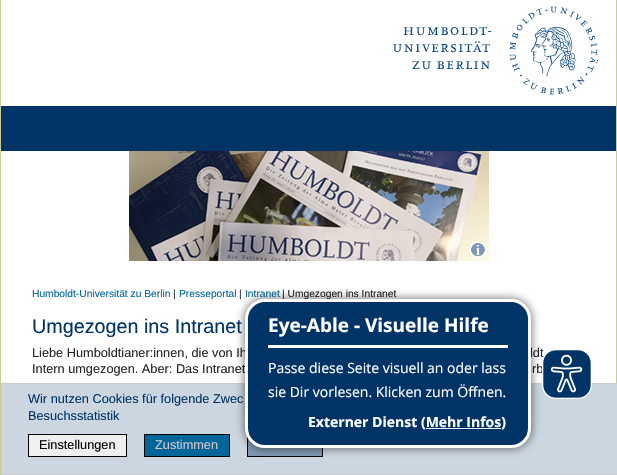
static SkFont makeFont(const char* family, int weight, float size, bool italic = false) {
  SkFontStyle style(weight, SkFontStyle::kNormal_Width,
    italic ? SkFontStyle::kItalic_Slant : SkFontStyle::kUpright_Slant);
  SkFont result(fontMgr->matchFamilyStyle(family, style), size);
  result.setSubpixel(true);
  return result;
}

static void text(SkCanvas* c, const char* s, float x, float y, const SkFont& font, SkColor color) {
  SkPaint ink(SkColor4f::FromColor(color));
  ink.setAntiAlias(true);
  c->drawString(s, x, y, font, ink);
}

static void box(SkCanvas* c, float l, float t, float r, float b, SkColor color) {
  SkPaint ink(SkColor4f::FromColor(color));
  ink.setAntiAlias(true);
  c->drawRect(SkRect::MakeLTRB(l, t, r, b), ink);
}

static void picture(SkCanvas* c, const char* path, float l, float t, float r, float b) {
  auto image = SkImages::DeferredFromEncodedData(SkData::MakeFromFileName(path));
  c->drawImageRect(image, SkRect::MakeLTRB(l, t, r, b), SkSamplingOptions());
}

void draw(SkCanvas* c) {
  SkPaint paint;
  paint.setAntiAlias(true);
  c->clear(0xffffffff);
  picture(c, "img_01.png", 393, 6, 598, 95);
  box(c, 1, 106, 616, 151, 0xff003366);
  picture(c, "img_02.png", 129, 151, 489, 261);
  picture(c, "img_03.png", 469, 241, 486, 258);
  box(c, 616, 0, 617, 383, 0xffcccc99);
  box(c, 0, 0, 1, 475, 0xffcccc99);
  SkFont face1 = makeFont("Liberation Sans", 400, 10.25f);
  text(c, "Humboldt-Universität zu Berlin", 32, 297, face1, 0xff006699);
  text(c, "|", 173, 297, face1, 0xff212529);
  text(c, "Presseportal", 179, 297, face1, 0xff006699);
  text(c, "|", 239, 297, face1, 0xff212529);
  text(c, "Intranet", 245, 297, face1, 0xff006699);
  text(c, "| Umgezogen ins Intranet", 282, 297, face1, 0xff212529);
  SkFont face2 = makeFont("Liberation Sans", 400, 19.75f);
  text(c, "Umgezogen ins Intranet", 32, 333, face2, 0xff003366);
  SkFont face3 = makeFont("Liberation Sans", 400, 12.75f);
  text(c, "Liebe Humboldtianer:innen, die von Ih", 32, 357, face3, 0xff212529);
  text(c, "ldt", 530, 357, face3, 0xff212529);
  text(c, "Intern umgezogen. Aber: Das Intranet", 32, 373, face3, 0xff212529);
  text(c, "rb", 532, 373, face3, 0xff212529);
  paint.setColor(0xffccd6e0);
  c->drawRect(SkRect::MakeLTRB(1.5f, 383.5f, 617.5f, 474.5f), paint);
  paint.setStyle(SkPaint::kStroke_Style);
  paint.setStrokeWidth(1);
  paint.setColor(0xffcccccc);
  c->drawRect(SkRect::MakeLTRB(1.5f, 383.5f, 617.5f, 474.5f), paint);
  text(c, "Wir nutzen Cookies für folgende Zwec", 28, 403, face3, 0xff003366);
  text(c, "Besuchsstatistik", 28, 420, face3, 0xff003366);
  paint.setStyle(SkPaint::kFill_Style);
  paint.setColor(0xffefefef);
  c->drawRect(SkRect::MakeLTRB(28.5f, 434.5f, 126.5f, 456.5f), paint);
  paint.setStyle(SkPaint::kStroke_Style);
  paint.setColor(0xff000000);
  c->drawRect(SkRect::MakeLTRB(28.5f, 434.5f, 126.5f, 456.5f), paint);
  text(c, "Einstellungen", 39, 449, face3, 0xff000000);
  paint.setStyle(SkPaint::kFill_Style);
  paint.setColor(0xff006699);
  c->drawRect(SkRect::MakeLTRB(144.5f, 434.5f, 229.5f, 456.5f), paint);
  paint.setStyle(SkPaint::kStroke_Style);
  paint.setColor(0xff000000);
  c->drawRect(SkRect::MakeLTRB(144.5f, 434.5f, 229.5f, 456.5f), paint);
  text(c, "Zustimmen", 155, 449, face3, 0xffd5c7c7);
  box(c, 248, 438, 322, 456, 0xff8099b2);
  c->drawRect(SkRect::MakeLTRB(247.5f, 434.5f, 322.5f, 456.5f), paint);
  paint.setStyle(SkPaint::kFill_Style);
  paint.setColor(0x80000000);
  paint.setMaskFilter(SkMaskFilter::MakeBlur(kNormal_SkBlurStyle, 4));
  c->drawRoundRect(SkRect::MakeLTRB(244, 298, 532, 449), 21, 21, paint);
  paint.setMaskFilter(nullptr);
  paint.setColor(0xff003366);
  c->drawRoundRect(SkRect::MakeLTRB(246.5f, 300.5f, 529.5f, 446.5f), 18.5f, 18.5f, paint);
  paint.setStyle(SkPaint::kStroke_Style);
  paint.setStrokeWidth(3);
  paint.setColor(0xffffffff);
  c->drawRoundRect(SkRect::MakeLTRB(246.5f, 300.5f, 529.5f, 446.5f), 18.5f, 18.5f, paint);
  box(c, 268, 345, 508, 348, 0xffffffff);
  SkFont face4 = makeFont("Open Sans", 700, 19);
  text(c, "Eye-Able - Visuelle Hilfe", 268, 332, face4, 0xffffffff);
  SkFont face5 = makeFont("Open Sans", 400, 14);
  text(c, "Passe diese Seite visuell an oder lass", 268, 373, face5, 0xffffffff);
  text(c, "sie Dir vorlesen. Klicken zum Öffnen.", 268, 397, face5, 0xffffffff);
  SkFont face6 = makeFont("Open Sans", 700, 14);
  text(c, "Externer Dienst (Mehr Infos)", 308, 427, face6, 0xffffffff);
  box(c, 426, 428, 501, 429, 0xffffffff);
  picture(c, "img_04.png", 542, 349, 592, 399);
}
